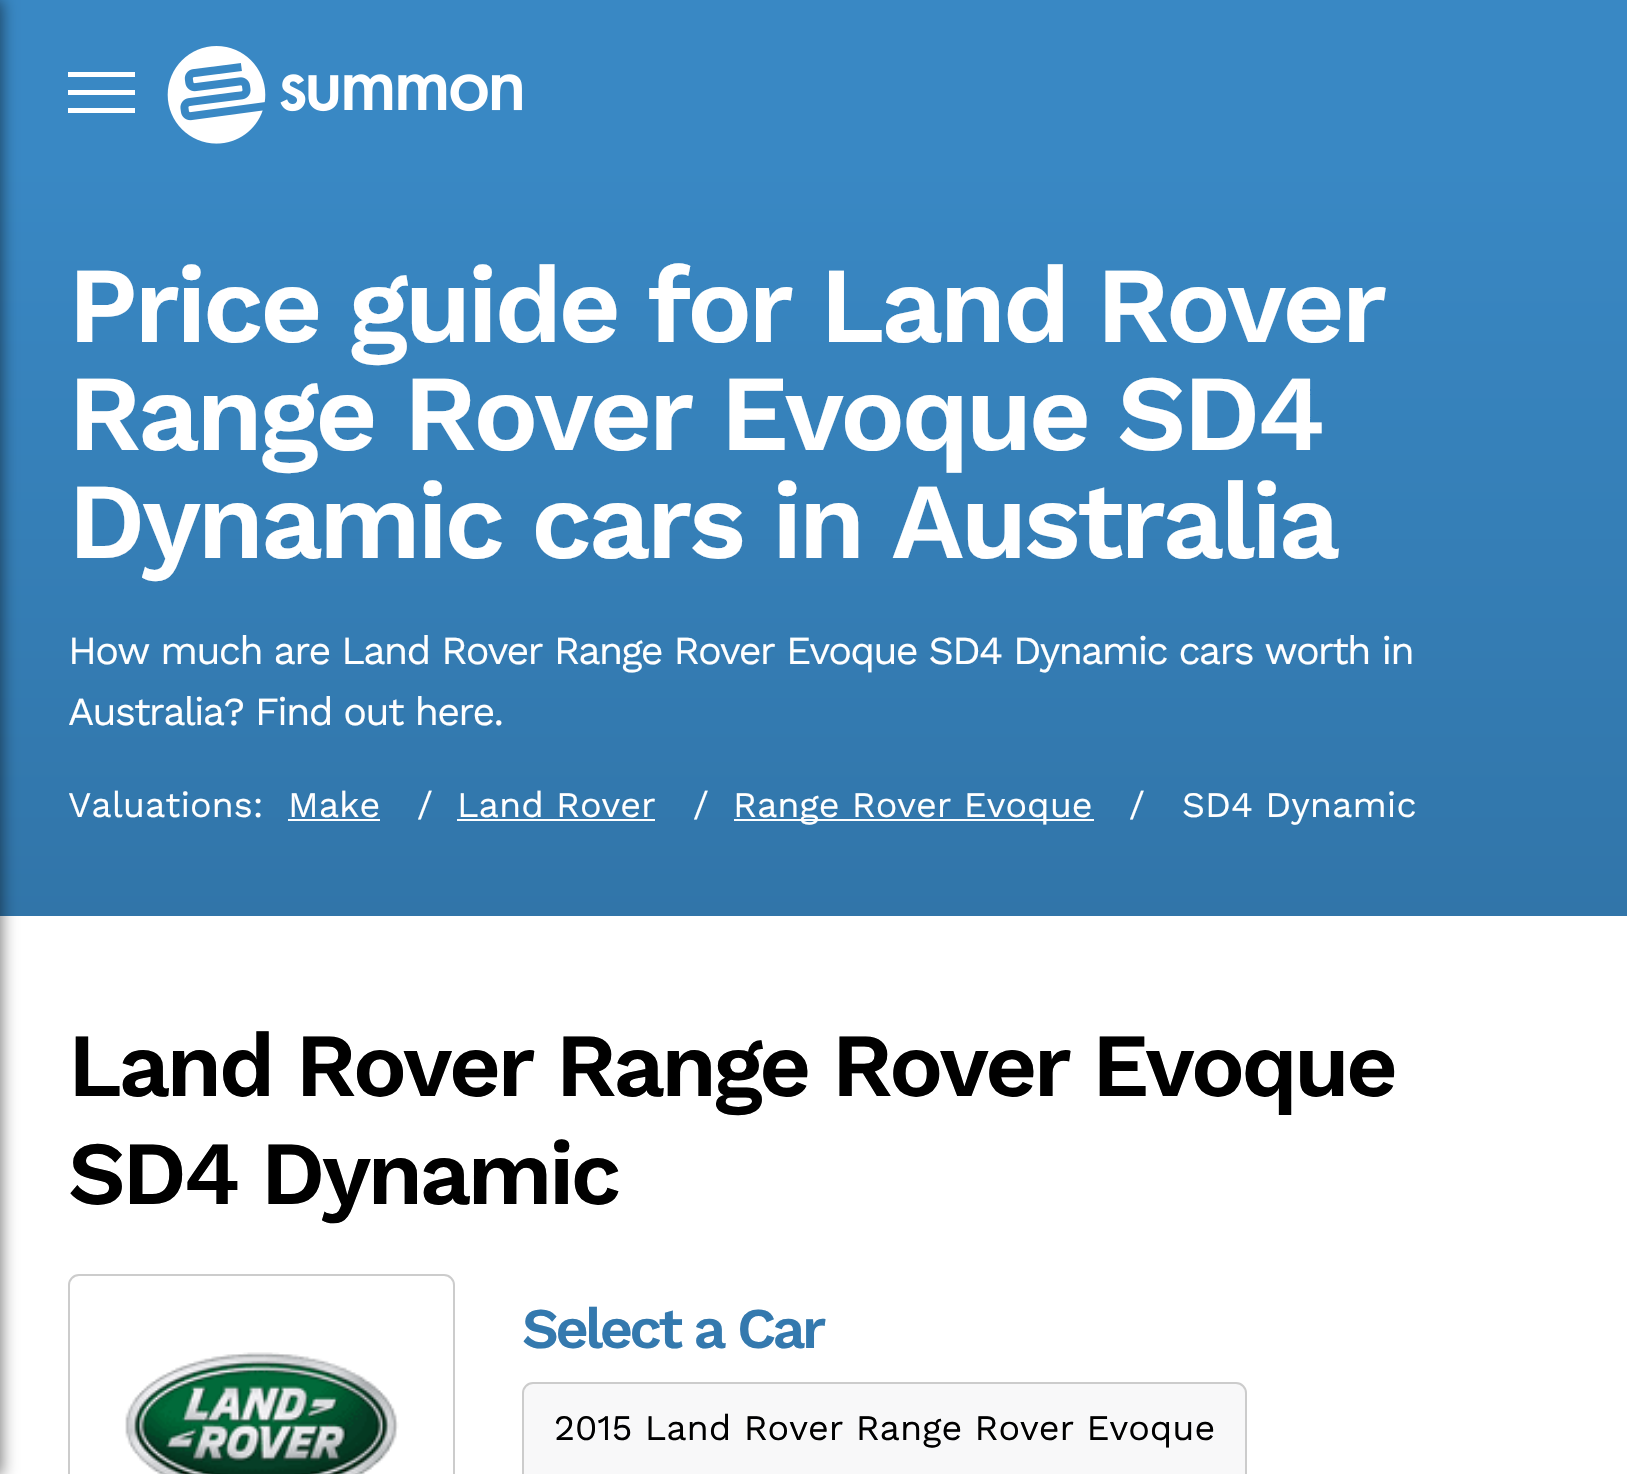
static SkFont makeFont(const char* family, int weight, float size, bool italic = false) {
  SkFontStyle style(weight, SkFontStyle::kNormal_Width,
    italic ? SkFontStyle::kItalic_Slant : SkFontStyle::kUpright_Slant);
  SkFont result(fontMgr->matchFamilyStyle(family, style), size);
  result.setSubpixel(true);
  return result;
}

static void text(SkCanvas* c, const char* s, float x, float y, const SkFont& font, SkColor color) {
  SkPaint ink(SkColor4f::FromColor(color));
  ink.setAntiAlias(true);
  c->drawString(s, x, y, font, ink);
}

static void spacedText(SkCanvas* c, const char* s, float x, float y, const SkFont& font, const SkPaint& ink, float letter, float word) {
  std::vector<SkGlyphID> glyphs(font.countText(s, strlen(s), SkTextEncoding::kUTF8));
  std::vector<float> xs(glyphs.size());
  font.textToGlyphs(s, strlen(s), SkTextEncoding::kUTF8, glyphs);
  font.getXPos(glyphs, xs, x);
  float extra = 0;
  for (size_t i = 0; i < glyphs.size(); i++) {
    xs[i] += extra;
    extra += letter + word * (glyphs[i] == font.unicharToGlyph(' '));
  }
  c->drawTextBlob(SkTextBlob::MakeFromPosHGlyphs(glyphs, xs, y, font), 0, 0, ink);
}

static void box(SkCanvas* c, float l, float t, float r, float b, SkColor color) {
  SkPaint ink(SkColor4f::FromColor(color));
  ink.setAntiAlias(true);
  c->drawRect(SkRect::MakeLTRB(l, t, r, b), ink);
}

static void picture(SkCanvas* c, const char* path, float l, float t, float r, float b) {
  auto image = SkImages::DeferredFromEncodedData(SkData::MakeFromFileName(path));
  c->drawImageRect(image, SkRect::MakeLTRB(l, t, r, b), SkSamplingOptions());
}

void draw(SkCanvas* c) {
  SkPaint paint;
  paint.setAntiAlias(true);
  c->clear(0xffffffff);
  box(c, 0, 0, 1627, 162, 0xff3988c4);
  box(c, 68, 72, 135, 77, 0xffffffff);
  box(c, 68, 90, 135, 95, 0xffffffff);
  box(c, 68, 108, 135, 113, 0xffffffff);
  picture(c, "img_01.png", 167, 46, 522, 144);
  {
    const SkColor colors[] = {0xff3988c4, 0xff3175a9};
    const float stops[] = {0, 1};
    const SkPoint ends[] = {{815, 162}, {815, 916}};
    paint.setShader(SkGradientShader::MakeLinear(ends, colors, stops, 2, SkTileMode::kClamp));
    paint.setAlpha(255);
  }
  c->drawRect(SkRect::MakeLTRB(0, 162, 1627, 916), paint);
  paint.setShader(nullptr);
  paint.setColor(0x80000000);
  paint.setMaskFilter(SkMaskFilter::MakeBlur(kNormal_SkBlurStyle, 8));
  c->drawRect(SkRect::MakeLTRB(-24, 0, 2, 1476), paint);
  paint.setMaskFilter(nullptr);
  SkFont face1 = makeFont("Work Sans", 600, 108);
  paint.setColor(0xffffffff);
  spacedText(c, "Price guide for Land Rover", 68, 342, face1, paint, -3.6f, 0);
  spacedText(c, "Range Rover Evoque SD4", 68, 450, face1, paint, -3.6f, 0);
  spacedText(c, "Dynamic cars in Australia", 68, 558, face1, paint, -3.6f, 0);
  SkFont face2 = makeFont("Work Sans", 400, 39.6f);
  spacedText(c, "How much are Land Rover Range Rover Evoque SD4 Dynamic cars worth in", 68, 664, face2, paint, -1.8f, 0);
  spacedText(c, "Australia? Find out here.", 68, 725, face2, paint, -1.8f, 0);
  SkFont face3 = makeFont("Work Sans", 400, 36);
  text(c, "Valuations:", 68, 817, face3, 0xffffffff);
  text(c, "Make", 288, 817, face3, 0xffffffff);
  box(c, 288, 819, 380, 821, 0xffffffff);
  text(c, "/", 417, 817, face3, 0xffffffff);
  text(c, "Land Rover", 457, 817, face3, 0xffffffff);
  box(c, 457, 819, 655, 821, 0xffffffff);
  text(c, "/", 693, 817, face3, 0xffffffff);
  box(c, 734, 819, 1094, 821, 0xffffffff);
  text(c, "Range Rover Evoque", 733, 817, face3, 0xffffffff);
  text(c, "/", 1129, 817, face3, 0xffffffff);
  text(c, "SD4 Dynamic", 1182, 817, face3, 0xffffffff);
  SkFont face4 = makeFont("Work Sans", 600, 90);
  paint.setColor(0xff000000);
  spacedText(c, "Land Rover Range Rover Evoque", 68, 1096, face4, paint, -3.6f, 0);
  spacedText(c, "SD4 Dynamic", 68, 1204, face4, paint, -3.6f, 0);
  paint.setStyle(SkPaint::kStroke_Style);
  paint.setStrokeWidth(2);
  paint.setColor(0xffcccccc);
  c->drawRoundRect(SkRect::MakeLTRB(69, 1275, 454, 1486), 10, 10, paint);
  picture(c, "img_02.png", 125, 1352, 399, 1474);
  SkFont face5 = makeFont("Work Sans", 600, 57.5f);
  paint.setStyle(SkPaint::kFill_Style);
  paint.setColor(0xff3479ae);
  spacedText(c, "Select a Car", 522, 1348, face5, paint, -3.6f, 0);
  paint.setColor(0xfff8f8f9);
  c->drawRoundRect(SkRect::MakeLTRB(523, 1383, 1246, 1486), 10, 10, paint);
  paint.setStyle(SkPaint::kStroke_Style);
  paint.setColor(0xffcccccc);
  c->drawRoundRect(SkRect::MakeLTRB(523, 1383, 1246, 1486), 10, 10, paint);
  text(c, "2015 Land Rover Range Rover Evoque", 554, 1440, face3, 0xff000000);
}
